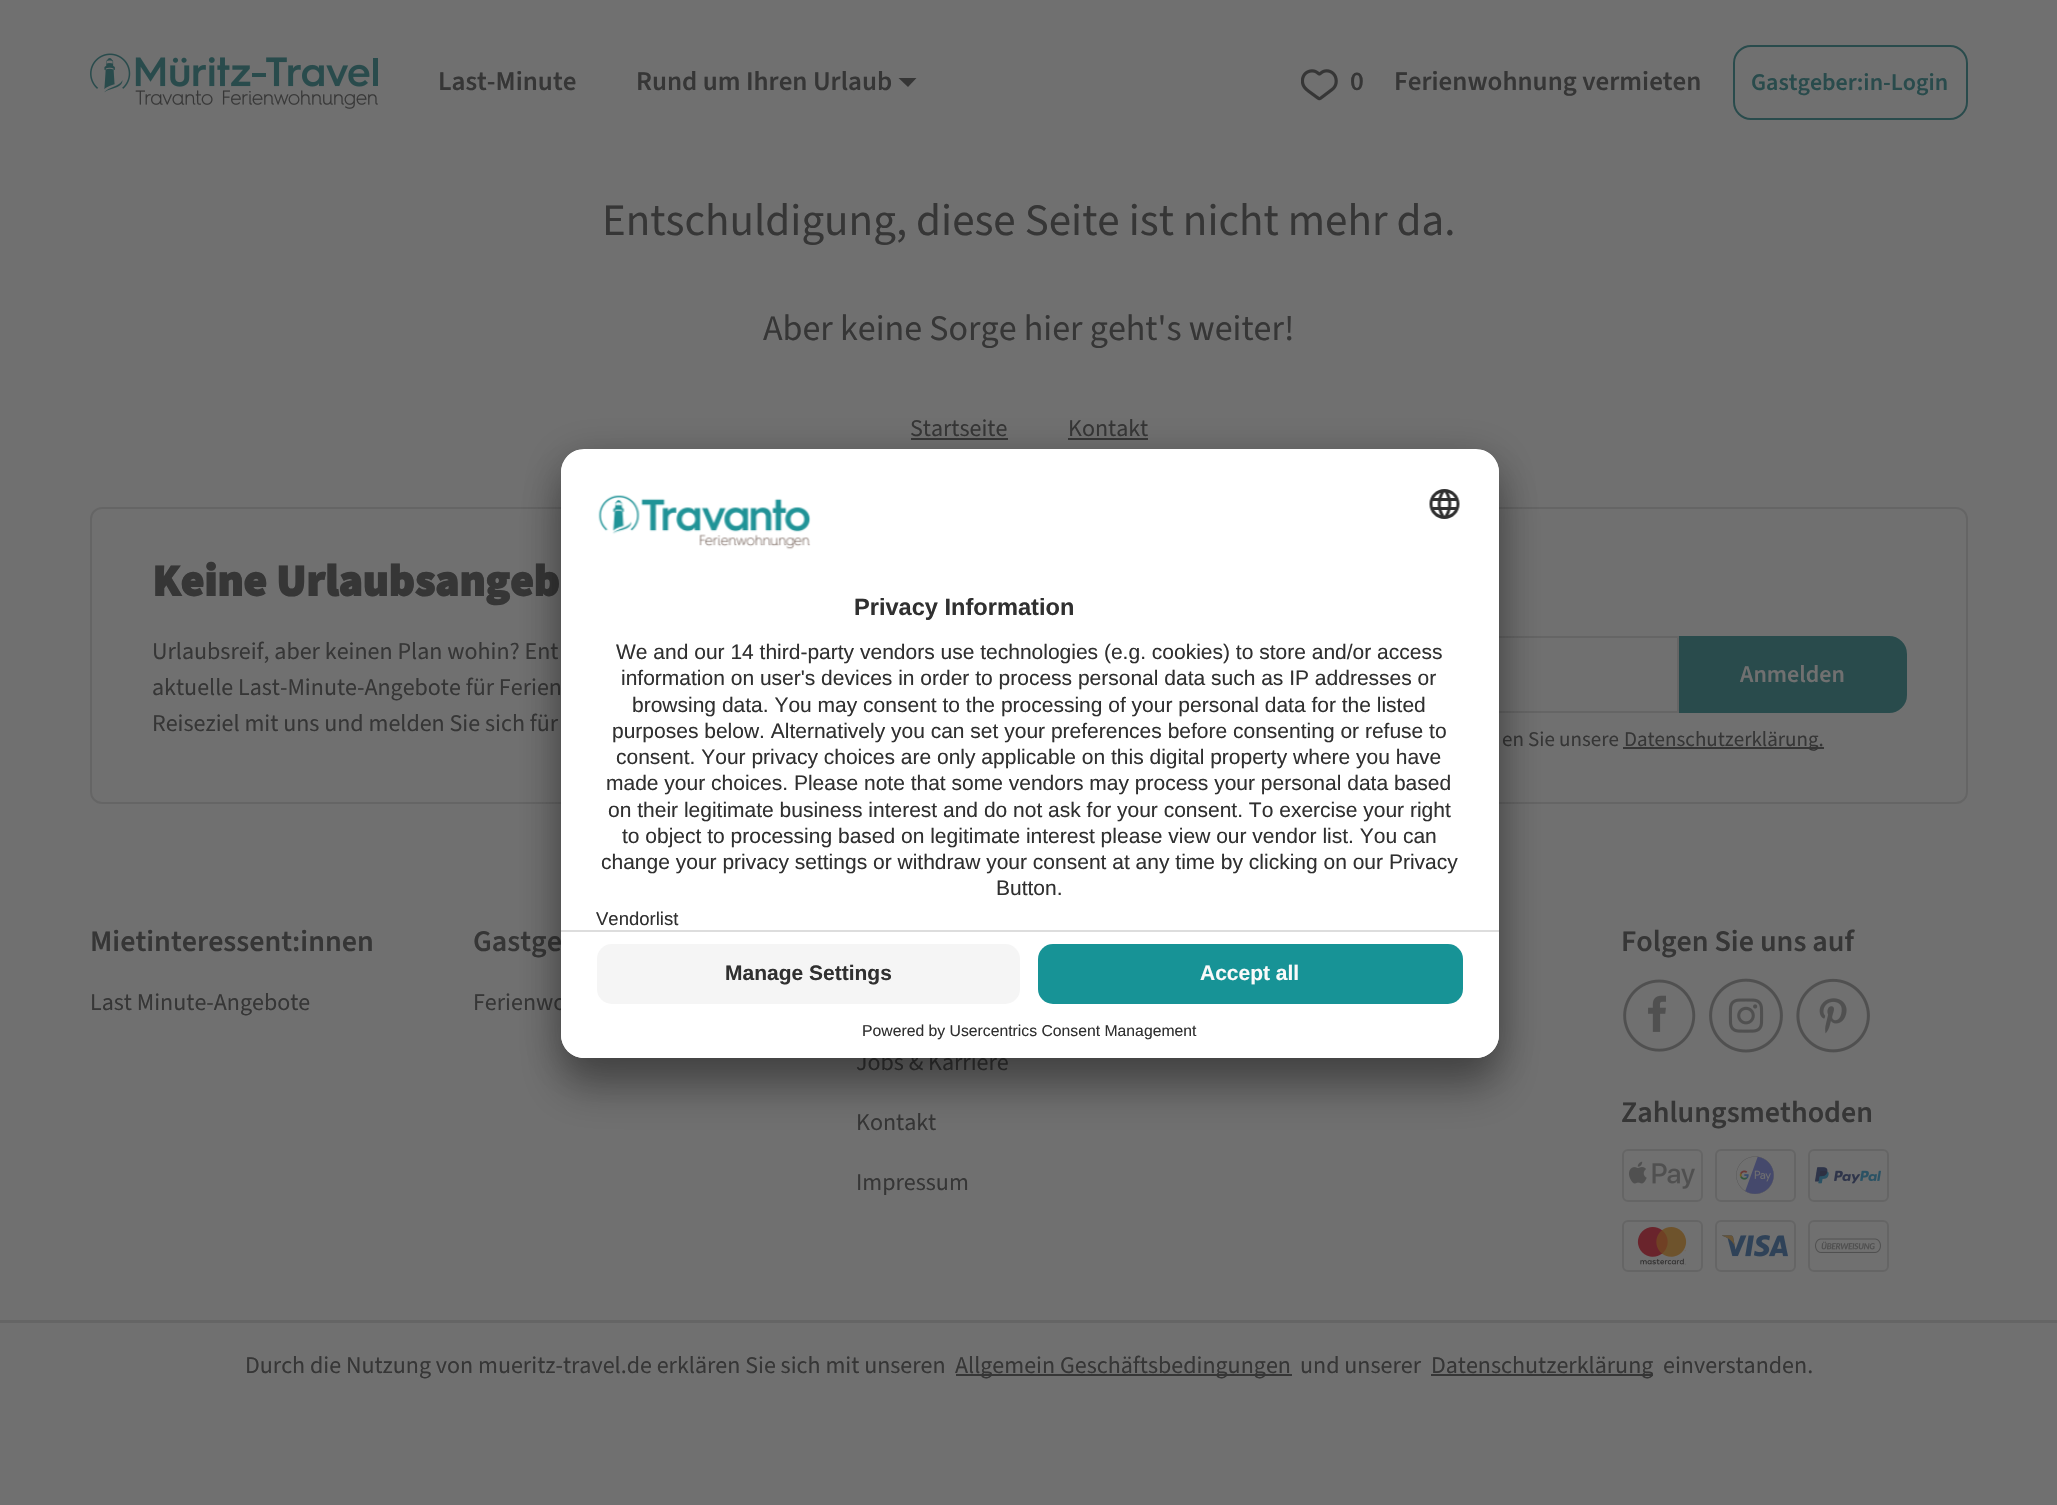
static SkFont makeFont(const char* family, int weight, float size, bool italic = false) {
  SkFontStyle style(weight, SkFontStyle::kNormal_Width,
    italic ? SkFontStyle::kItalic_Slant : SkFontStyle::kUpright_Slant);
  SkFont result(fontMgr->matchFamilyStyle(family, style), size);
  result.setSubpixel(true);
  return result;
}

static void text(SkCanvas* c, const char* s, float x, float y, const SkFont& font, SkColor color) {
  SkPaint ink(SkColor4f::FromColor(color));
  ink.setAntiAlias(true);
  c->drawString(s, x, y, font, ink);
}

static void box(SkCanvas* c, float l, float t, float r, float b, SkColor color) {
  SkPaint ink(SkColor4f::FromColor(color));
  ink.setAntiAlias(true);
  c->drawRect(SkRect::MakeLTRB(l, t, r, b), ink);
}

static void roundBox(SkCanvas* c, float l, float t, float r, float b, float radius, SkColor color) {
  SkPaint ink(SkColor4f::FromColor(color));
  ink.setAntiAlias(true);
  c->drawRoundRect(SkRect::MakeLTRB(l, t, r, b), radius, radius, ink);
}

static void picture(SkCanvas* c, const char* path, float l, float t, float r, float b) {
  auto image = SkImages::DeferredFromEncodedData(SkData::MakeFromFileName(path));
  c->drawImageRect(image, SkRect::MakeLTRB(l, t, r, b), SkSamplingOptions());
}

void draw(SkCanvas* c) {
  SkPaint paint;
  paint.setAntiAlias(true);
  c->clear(0xff707070);
  picture(c, "img_01.png", 90, 53, 378, 109);
  SkFont face1 = makeFont("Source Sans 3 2", 200, 27);
  text(c, "Last-Minute", 438, 90, face1, 0xff363636);
  text(c, "Rund um Ihren Urlaub", 636, 90, face1, 0xff363636);
  paint.setColor(0xff363636);
  c->drawPath(SkPathBuilder().moveTo(898.5f, 78).lineTo(908, 87).lineTo(916.5f, 78).close().detach(), paint);
  picture(c, "img_02.png", 1301, 69, 1338, 101);
  text(c, "0", 1350, 90, face1, 0xff363636);
  text(c, "Ferienwohnung vermieten", 1394, 90, face1, 0xff363636);
  paint.setStyle(SkPaint::kStroke_Style);
  paint.setStrokeWidth(2);
  paint.setColor(0xff294b4c);
  c->drawRoundRect(SkRect::MakeLTRB(1734, 46, 1967, 119), 17, 17, paint);
  SkFont face2 = makeFont("Source Sans 3 2", 200, 24);
  text(c, "Gastgeber:in-Login", 1751, 90, face2, 0xff294b4c);
  SkFont face3 = makeFont("Source Sans 3", 200, 45);
  text(c, "Entschuldigung, diese Seite ist nicht mehr da.", 602, 235, face3, 0xff363636);
  SkFont face4 = makeFont("Source Sans 3", 200, 36);
  text(c, "Aber keine Sorge hier geht's weiter!", 763, 340, face4, 0xff363636);
  SkFont face5 = makeFont("Source Sans 3", 200, 24);
  text(c, "Startseite", 910, 436, face5, 0xff363636);
  box(c, 911, 438, 1008, 440, 0xff363636);
  text(c, "Kontakt", 1068, 436, face5, 0xff363636);
  box(c, 1068, 438, 1148, 440, 0xff363636);
  paint.setColor(0xff656565);
  c->drawRoundRect(SkRect::MakeLTRB(91, 508, 1967, 803), 11, 11, paint);
  SkFont face6 = makeFont("Source Sans 3", 700, 45);
  text(c, "Keine Urlaubsangeb", 152, 596, face6, 0xff363636);
  text(c, "Urlaubsreif, aber keinen Plan wohin? Ent", 152, 659, face5, 0xff363636);
  text(c, "aktuelle Last-Minute-Angebote für Ferien", 152, 695, face5, 0xff363636);
  text(c, "Reiseziel mit uns und melden Sie sich für", 152, 731, face5, 0xff363636);
  c->drawRect(SkRect::MakeLTRB(1078, 637, 1678, 712), paint);
  paint.setStyle(SkPaint::kFill_Style);
  paint.setColor(0xff294b4c);
  c->drawPath(SkPathBuilder().moveTo(1680, 637).lineTo(1889, 637).cubicTo(1898.5f, 637, 1906, 644.5f, 1906, 654).lineTo(1906, 695).cubicTo(1906, 704.5f, 1898.5f, 712, 1889, 712).lineTo(1680, 712).close().detach(), paint);
  paint.setStyle(SkPaint::kStroke_Style);
  c->drawPath(SkPathBuilder().moveTo(1680, 637).lineTo(1889, 637).cubicTo(1898.5f, 637, 1906, 644.5f, 1906, 654).lineTo(1906, 695).cubicTo(1906, 704.5f, 1898.5f, 712, 1889, 712).lineTo(1680, 712).close().detach(), paint);
  text(c, "Anmelden", 1740, 682, face2, 0xff707070);
  SkFont face7 = makeFont("Source Sans 3", 200, 21);
  text(c, "en Sie unsere", 1502, 746, face7, 0xff363636);
  box(c, 1623, 747, 1824, 749, 0xff363636);
  text(c, "Datenschutzerklärung.", 1624, 746, face7, 0xff363636);
  SkFont face8 = makeFont("Source Sans 3 2", 200, 30);
  text(c, "Mietinteressent:innen", 90, 951, face8, 0xff363636);
  text(c, "Last Minute-Angebote", 90, 1010, face5, 0xff363636);
  text(c, "Gastge", 473, 951, face8, 0xff363636);
  text(c, "Ferienwo", 473, 1010, face5, 0xff363636);
  text(c, "Folgen Sie uns auf", 1621, 951, face8, 0xff363636);
  picture(c, "img_03.png", 1623, 979, 1696, 1052);
  picture(c, "img_04.png", 1709, 978, 1783, 1053);
  picture(c, "img_05.png", 1796, 978, 1870, 1053);
  text(c, "Zahlungsmethoden", 1621, 1122, face8, 0xff363636);
  paint.setColor(0xff656565);
  c->drawRoundRect(SkRect::MakeLTRB(1623, 1150, 1702, 1201), 5, 5, paint);
  picture(c, "img_06.png", 1629, 1161, 1695, 1189);
  c->drawRoundRect(SkRect::MakeLTRB(1716, 1150, 1795, 1201), 5, 5, paint);
  picture(c, "img_07.png", 1736, 1156, 1774, 1194);
  c->drawRoundRect(SkRect::MakeLTRB(1809, 1150, 1888, 1201), 5, 5, paint);
  picture(c, "img_08.png", 1815, 1167, 1881, 1184);
  c->drawRoundRect(SkRect::MakeLTRB(1623, 1221, 1702, 1271), 5, 5, paint);
  picture(c, "img_09.png", 1637, 1227, 1687, 1265);
  c->drawRoundRect(SkRect::MakeLTRB(1716, 1221, 1795, 1271), 5, 5, paint);
  picture(c, "img_10.png", 1722, 1235, 1788, 1257);
  c->drawRoundRect(SkRect::MakeLTRB(1809, 1221, 1888, 1271), 5, 5, paint);
  picture(c, "img_11.png", 1815, 1238, 1881, 1253);
  text(c, "Jobs & Karriere", 856, 1070, face5, 0xff363636);
  text(c, "Kontakt", 856, 1130, face5, 0xff363636);
  text(c, "Impressum", 856, 1190, face5, 0xff363636);
  box(c, 0, 1320, 2057, 1323, 0xff656565);
  text(c, "Durch die Nutzung von mueritz-travel.de erklären Sie sich mit unseren", 245, 1373, face5, 0xff363636);
  box(c, 956, 1374, 1292, 1376, 0xff363636);
  text(c, "Allgemein Geschäftsbedingungen", 955, 1373, face5, 0xff363636);
  text(c, "und unserer", 1300, 1373, face5, 0xff363636);
  box(c, 1431, 1374, 1653, 1376, 0xff363636);
  text(c, "Datenschutzerklärung", 1431, 1373, face5, 0xff363636);
  text(c, "einverstanden.", 1663, 1373, face5, 0xff363636);
  paint.setStyle(SkPaint::kFill_Style);
  paint.setColor(0x4d000000);
  paint.setMaskFilter(SkMaskFilter::MakeBlur(kNormal_SkBlurStyle, 21));
  c->drawRoundRect(SkRect::MakeLTRB(561, 479, 1499, 1088), 23, 23, paint);
  paint.setMaskFilter(nullptr);
  paint.setColor(0x38000000);
  paint.setMaskFilter(SkMaskFilter::MakeBlur(kNormal_SkBlurStyle, 19.5f));
  c->drawRoundRect(SkRect::MakeLTRB(561, 456, 1499, 1065), 23, 23, paint);
  paint.setMaskFilter(nullptr);
  roundBox(c, 561, 449, 1499, 1058, 23, 0xffffffff);
  c->save();
  c->clipPath(SkPathBuilder().moveTo(584, 449).lineTo(1476, 449).cubicTo(1488.5f, 449, 1499, 459.5f, 1499, 472).lineTo(1499, 1035).cubicTo(1499, 1047.5f, 1488.5f, 1058, 1476, 1058).lineTo(584, 1058).cubicTo(571.5f, 1058, 561, 1047.5f, 561, 1035).lineTo(561, 472).cubicTo(561, 459.5f, 571.5f, 449, 584, 449).close().detach(), true);
  c->clipPath(SkPathBuilder().moveTo(584, 449).lineTo(1476, 449).cubicTo(1488.5f, 449, 1499, 459.5f, 1499, 472).lineTo(1499, 930).lineTo(561, 930).lineTo(561, 472).cubicTo(561, 459.5f, 571.5f, 449, 584, 449).close().detach(), true);
  box(c, 561, 450, 1499, 930, 0xffffffff);
  c->restore();
  picture(c, "img_12.png", 598, 495, 811, 550);
  picture(c, "img_13.png", 1429, 489, 1460, 519);
  SkFont face9 = makeFont("Liberation Sans", 700, 23.6f);
  text(c, "Privacy Information", 854, 615, face9, 0xff303030);
  SkFont face10 = makeFont("Liberation Sans", 400, 21);
  text(c, "We and our 14 third-party vendors use technologies (e.g. cookies) to store and/or access", 616, 659, face10, 0xff303030);
  text(c, "information on user's devices in order to process personal data such as IP addresses or", 621, 685, face10, 0xff303030);
  text(c, "browsing data. You may consent to the processing of your personal data for the listed", 632, 712, face10, 0xff303030);
  text(c, "purposes below. Alternatively you can set your preferences before consenting or refuse to", 612, 738, face10, 0xff303030);
  text(c, "consent. Your privacy choices are only applicable on this digital property where you have", 616, 764, face10, 0xff303030);
  text(c, "made your choices. Please note that some vendors may process your personal data based", 606, 790, face10, 0xff303030);
  text(c, "on their legitimate business interest and do not ask for your consent. To exercise your right", 608, 817, face10, 0xff303030);
  text(c, "to object to processing based on legitimate interest please view our vendor list. You can", 622, 843, face10, 0xff303030);
  text(c, "change your privacy settings or withdraw your consent at any time by clicking on our Privacy", 601, 869, face10, 0xff303030);
  text(c, "Button.", 996, 895, face10, 0xff303030);
  SkFont face11 = makeFont("Liberation Sans", 400, 18.5f);
  text(c, "Vendorlist", 596, 925, face11, 0xff303030);
  paint.setColor(0xffffffff);
  c->drawPath(SkPathBuilder().moveTo(561, 930).lineTo(1499, 930).lineTo(1499, 1035).cubicTo(1499, 1047.5f, 1488.5f, 1058, 1476, 1058).lineTo(584, 1058).cubicTo(571.5f, 1058, 561, 1047.5f, 561, 1035).close().detach(), paint);
  box(c, 561, 930, 1499, 932, 0xffdddddd);
  roundBox(c, 597, 944, 1020, 1004, 15, 0xfff5f5f5);
  SkFont face12 = makeFont("Liberation Sans", 700, 21);
  text(c, "Manage Settings", 725, 980, face12, 0xff303030);
  roundBox(c, 1038, 944, 1463, 1004, 15, 0xff179396);
  text(c, "Accept all", 1200, 980, face12, 0xfffafafa);
  SkFont face13 = makeFont("Liberation Sans", 400, 15.75f);
  text(c, "Powered by Usercentrics Consent Management", 862, 1036, face13, 0xff303030);
}
